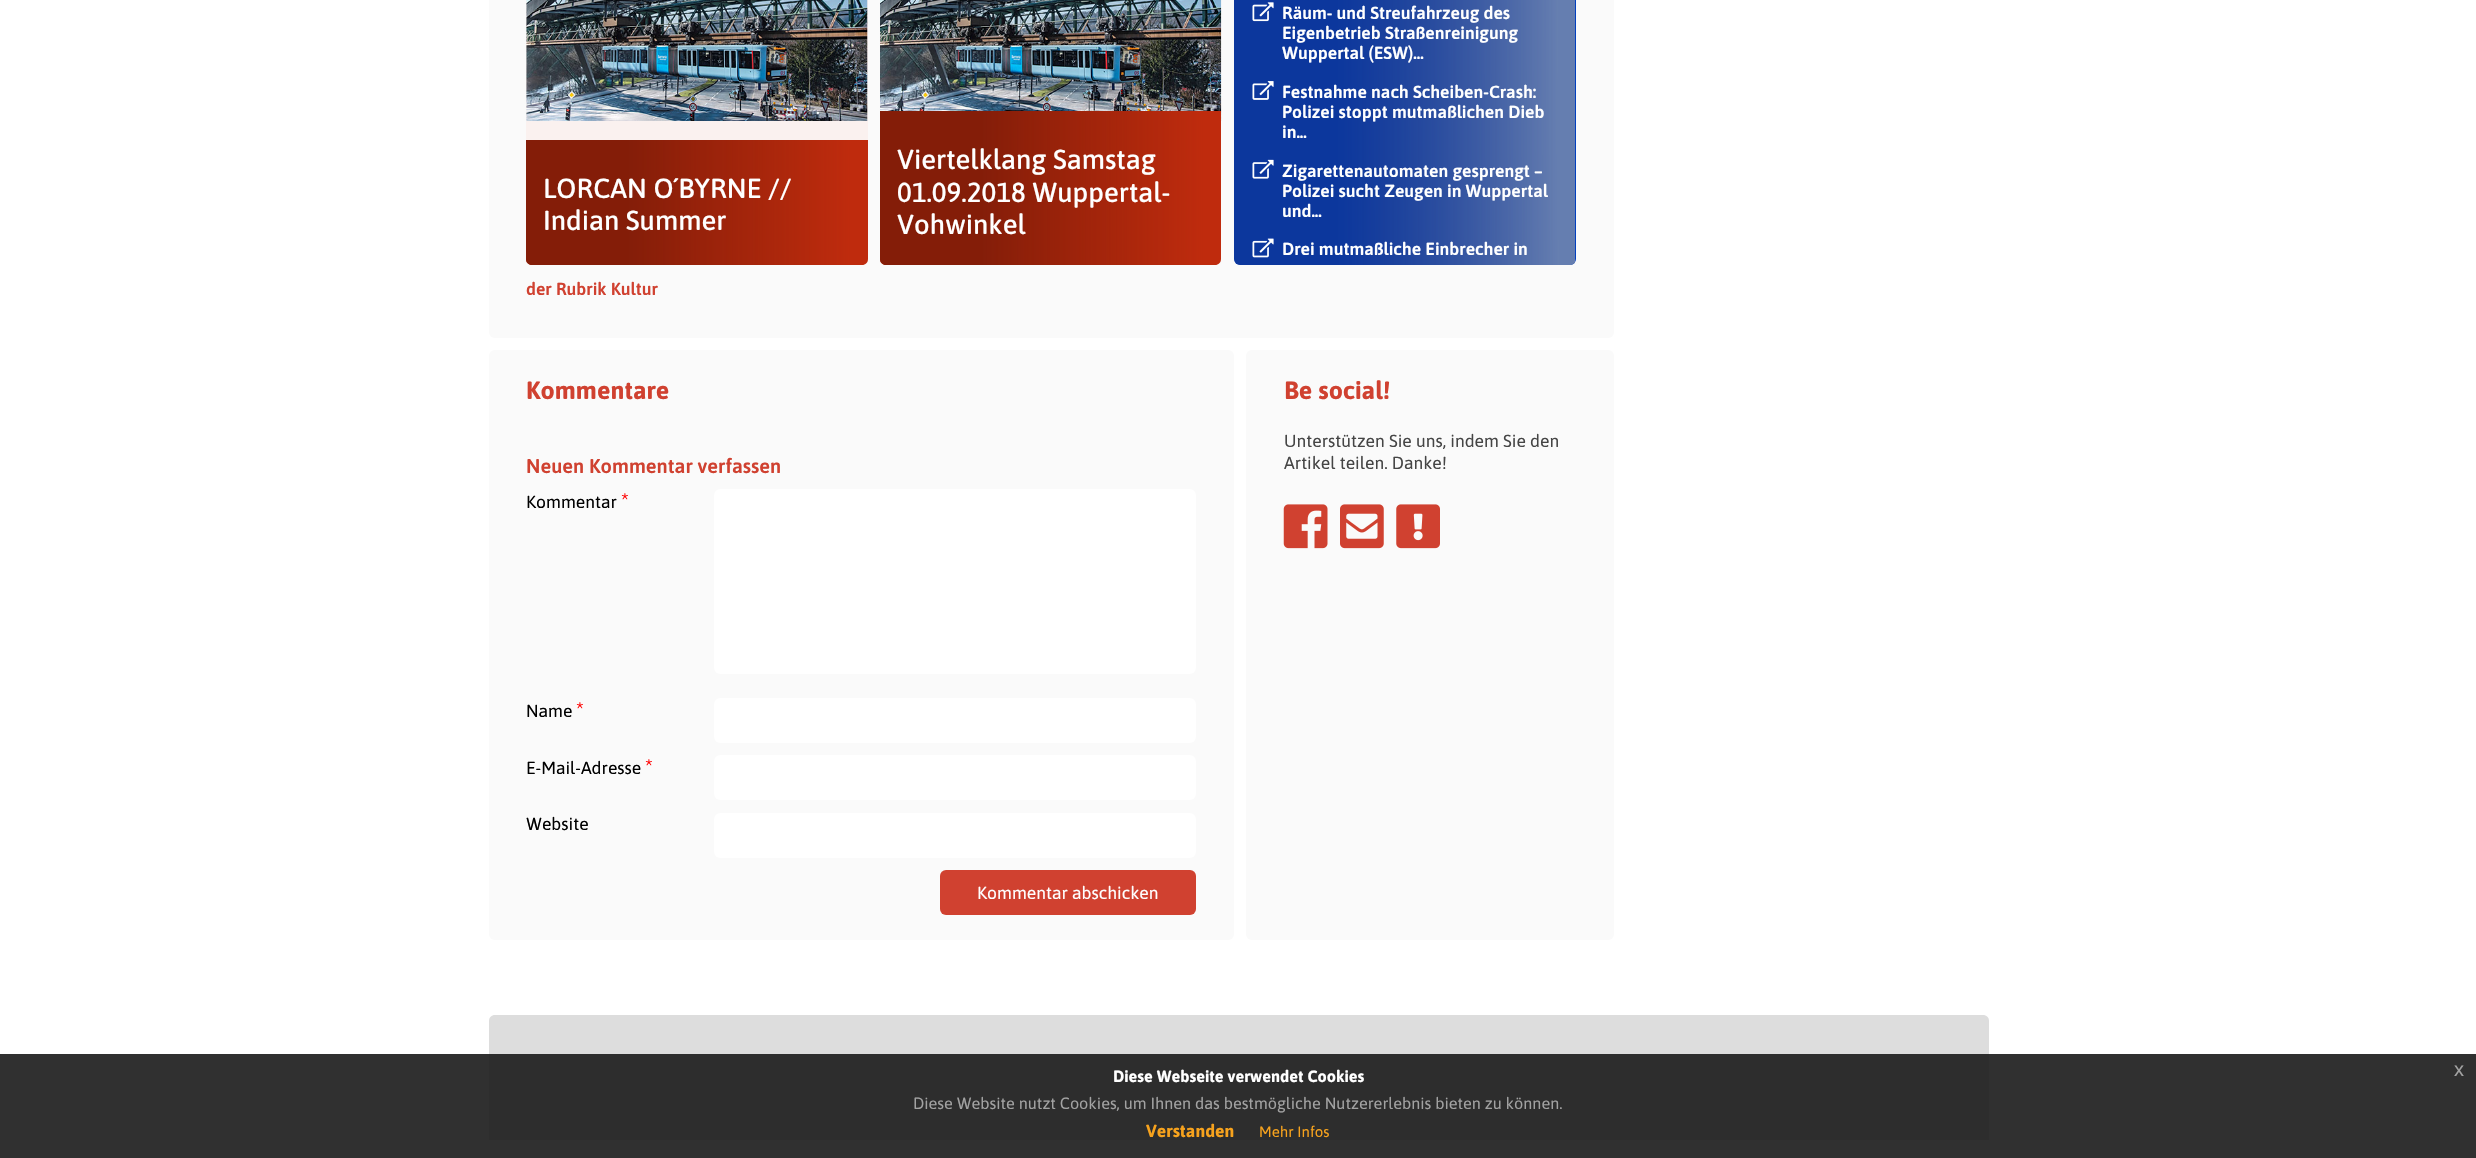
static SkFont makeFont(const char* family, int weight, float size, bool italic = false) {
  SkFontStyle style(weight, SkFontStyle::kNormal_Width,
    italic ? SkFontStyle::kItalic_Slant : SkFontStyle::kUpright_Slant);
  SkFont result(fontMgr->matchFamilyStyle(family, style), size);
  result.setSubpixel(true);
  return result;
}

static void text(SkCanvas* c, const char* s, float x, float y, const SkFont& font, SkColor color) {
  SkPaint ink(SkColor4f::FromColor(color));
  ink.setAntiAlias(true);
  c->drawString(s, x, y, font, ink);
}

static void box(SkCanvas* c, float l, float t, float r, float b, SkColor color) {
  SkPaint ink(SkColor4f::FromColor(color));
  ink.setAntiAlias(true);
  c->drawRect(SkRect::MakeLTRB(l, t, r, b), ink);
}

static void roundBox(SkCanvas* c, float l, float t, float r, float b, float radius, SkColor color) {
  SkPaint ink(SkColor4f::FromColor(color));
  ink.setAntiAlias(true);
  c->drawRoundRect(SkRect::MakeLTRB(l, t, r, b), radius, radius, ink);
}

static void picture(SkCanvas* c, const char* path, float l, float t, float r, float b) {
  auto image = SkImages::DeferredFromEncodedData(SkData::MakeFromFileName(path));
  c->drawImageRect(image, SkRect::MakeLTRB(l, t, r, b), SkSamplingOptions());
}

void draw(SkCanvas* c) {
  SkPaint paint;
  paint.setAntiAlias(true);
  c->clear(0xffffffff);
  box(c, 0, 1054, 2476, 1158, 0xff303030);
  roundBox(c, 489, -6, 1614, 338, 6, 0xfffafafa);
  roundBox(c, 526, -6, 868, 265, 6, 0xfffaf1ef);
  picture(c, "img_01.png", 526, 0, 868, 121);
  paint.setColor(0xffbf2b0d);
  c->drawPath(SkPathBuilder().moveTo(526, 140).lineTo(868, 140).lineTo(868, 259).cubicTo(868, 262.5f, 865.5f, 265, 862, 265).lineTo(532, 265).cubicTo(528.5f, 265, 526, 262.5f, 526, 259).close().detach(), paint);
  {
    const SkColor colors[] = {0xff841d08, 0x00841d08};
    const float stops[] = {0.3f, 0.95f};
    const SkPoint ends[] = {{526, 203}, {868, 203}};
    paint.setShader(SkGradientShader::MakeLinear(ends, colors, stops, 2, SkTileMode::kClamp));
    paint.setAlpha(255);
  }
  c->drawPath(SkPathBuilder().moveTo(526, 140).lineTo(868, 140).lineTo(868, 259).cubicTo(868, 262.5f, 865.5f, 265, 862, 265).lineTo(532, 265).cubicTo(528.5f, 265, 526, 262.5f, 526, 259).close().detach(), paint);
  SkFont face1 = makeFont("Asap", 500, 27.5f);
  text(c, "LORCAN O´BYRNE //", 543, 198, face1, 0xffffffff);
  text(c, "Indian Summer", 543, 230, face1, 0xffffffff);
  picture(c, "img_02.png", 880, 0, 1222, 121);
  paint.setShader(nullptr);
  paint.setColor(0xffbf2b0d);
  c->drawPath(SkPathBuilder().moveTo(880, 111).lineTo(1221, 111).lineTo(1221, 259).cubicTo(1221, 262.5f, 1218.5f, 265, 1215, 265).lineTo(886, 265).cubicTo(882.5f, 265, 880, 262.5f, 880, 259).close().detach(), paint);
  {
    const SkColor colors[] = {0xff841d08, 0x00841d08};
    const float stops[] = {0.3f, 0.95f};
    const SkPoint ends[] = {{880, 188}, {1221, 188}};
    paint.setShader(SkGradientShader::MakeLinear(ends, colors, stops, 2, SkTileMode::kClamp));
    paint.setAlpha(255);
  }
  c->drawPath(SkPathBuilder().moveTo(880, 111).lineTo(1221, 111).lineTo(1221, 259).cubicTo(1221, 262.5f, 1218.5f, 265, 1215, 265).lineTo(886, 265).cubicTo(882.5f, 265, 880, 262.5f, 880, 259).close().detach(), paint);
  text(c, "Viertelklang Samstag", 897, 169, face1, 0xffffffff);
  text(c, "01.09.2018 Wuppertal-", 897, 202, face1, 0xffffffff);
  text(c, "Vohwinkel", 897, 234, face1, 0xffffffff);
  roundBox(c, 1234, -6, 1576, 265, 6, 0xff0240bf);
  c->save();
  c->clipPath(SkPathBuilder().moveTo(1240, -110).lineTo(1570, -110).cubicTo(1573.5f, -110, 1576, -107.5f, 1576, -104).lineTo(1576, 259).cubicTo(1576, 262.5f, 1573.5f, 265, 1570, 265).lineTo(1240, 265).cubicTo(1236.5f, 265, 1234, 262.5f, 1234, 259).lineTo(1234, -104).cubicTo(1234, -107.5f, 1236.5f, -110, 1240, -110).close().detach(), true);
  {
    const SkColor colors[] = {0x80162e7b, 0xff657eb0};
    const float stops[] = {0.3f, 0.95f};
    const SkPoint ends[] = {{1234, 78}, {1576, 77}};
    paint.setShader(SkGradientShader::MakeLinear(ends, colors, stops, 2, SkTileMode::kClamp));
    paint.setAlpha(255);
  }
  c->drawPath(SkPathBuilder().moveTo(1240, -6).lineTo(1575, -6).lineTo(1575, 265).lineTo(1240, 265).cubicTo(1236.5f, 265, 1234, 262.5f, 1234, 259).lineTo(1234, 0).cubicTo(1234, -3.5f, 1236.5f, -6, 1240, -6).close().detach(), paint);
  c->restore();
  picture(c, "img_03.png", 1252, 2, 1274, 22);
  SkFont face2 = makeFont("Asap", 600, 17.5f);
  text(c, "Räum- und Streufahrzeug des", 1282, 19, face2, 0xffffffff);
  text(c, "Eigenbetrieb Straßenreinigung", 1282, 39, face2, 0xffffffff);
  text(c, "Wuppertal (ESW)...", 1282, 59, face2, 0xffffffff);
  picture(c, "img_04.png", 1252, 81, 1274, 100);
  text(c, "Festnahme nach Scheiben-Crash:", 1282, 98, face2, 0xffffffff);
  text(c, "Polizei stoppt mutmaßlichen Dieb", 1282, 118, face2, 0xffffffff);
  text(c, "in...", 1282, 138, face2, 0xffffffff);
  picture(c, "img_05.png", 1252, 159, 1274, 179);
  text(c, "Zigarettenautomaten gesprengt –", 1282, 177, face2, 0xffffffff);
  text(c, "Polizei sucht Zeugen in Wuppertal", 1282, 197, face2, 0xffffffff);
  text(c, "und...", 1282, 217, face2, 0xffffffff);
  picture(c, "img_06.png", 1252, 238, 1274, 258);
  text(c, "Drei mutmaßliche Einbrecher in", 1282, 255, face2, 0xffffffff);
  text(c, "der Rubrik Kultur", 526, 295, face2, 0xffd04130);
  roundBox(c, 489, 350, 1234, 940, 6, 0xfffafafa);
  SkFont face3 = makeFont("Asap", 700, 25);
  text(c, "Kommentare", 526, 399, face3, 0xffd04130);
  SkFont face4 = makeFont("Asap", 600, 20);
  text(c, "Neuen Kommentar verfassen", 526, 473, face4, 0xffd04130);
  SkFont face5 = makeFont("Asap", 400, 17.5f);
  text(c, "Kommentar", 526, 508, face5, 0xff000000);
  SkFont face6 = makeFont("Asap", 400, 21);
  text(c, "*", 621, 508, face6, 0xffff0000);
  roundBox(c, 714, 489, 1196, 674, 6, 0xffffffff);
  text(c, "Name", 526, 717, face5, 0xff000000);
  text(c, "*", 576, 717, face6, 0xffff0000);
  roundBox(c, 714, 698, 1196, 743, 6, 0xffffffff);
  text(c, "E-Mail-Adresse", 526, 774, face5, 0xff000000);
  text(c, "*", 645, 774, face6, 0xffff0000);
  roundBox(c, 714, 755, 1196, 800, 6, 0xffffffff);
  text(c, "Website", 526, 830, face5, 0xff000000);
  roundBox(c, 714, 813, 1196, 858, 6, 0xffffffff);
  roundBox(c, 940, 870, 1196, 915, 6, 0xffd04130);
  text(c, "Kommentar abschicken", 977, 899, face5, 0xffffffff);
  roundBox(c, 1246, 350, 1614, 940, 6, 0xfffafafa);
  text(c, "Be social!", 1284, 399, face3, 0xffd04130);
  text(c, "Unterstützen Sie uns, indem Sie den", 1284, 447, face5, 0xff454545);
  text(c, "Artikel teilen. Danke!", 1284, 469, face5, 0xff454545);
  picture(c, "img_07.png", 1283, 504, 1328, 549);
  picture(c, "img_08.png", 1340, 504, 1384, 549);
  picture(c, "img_09.png", 1396, 504, 1440, 549);
  paint.setShader(nullptr);
  paint.setColor(0xffdddddd);
  c->drawPath(SkPathBuilder().moveTo(495, 1015).lineTo(1983, 1015).cubicTo(1986.5f, 1015, 1989, 1017.5f, 1989, 1021).lineTo(1989, 1140).lineTo(489, 1140).lineTo(489, 1021).cubicTo(489, 1017.5f, 491.5f, 1015, 495, 1015).close().detach(), paint);
  box(c, 489, 1054, 1989, 1140, 0xff2d2d2d);
  SkFont face7 = makeFont("Asap", 700, 16.25f);
  text(c, "Diese Webseite verwendet Cookies", 1113, 1082, face7, 0xffffffff);
  SkFont face8 = makeFont("Liberation Sans", 400, 20);
  text(c, "x", 2454, 1076, face8, 0xffa2a2a2);
  SkFont face9 = makeFont("Asap", 400, 16.25f);
  text(c, "Diese Website nutzt Cookies, um Ihnen das bestmögliche Nutzererlebnis bieten zu können.", 913, 1109, face9, 0xffa2a2a2);
  SkFont face10 = makeFont("Asap", 700, 17.5f);
  text(c, "Verstanden", 1146, 1137, face10, 0xfff6a21d);
  SkFont face11 = makeFont("Asap", 400, 15);
  text(c, "Mehr Infos", 1259, 1137, face11, 0xfff6a21d);
}
